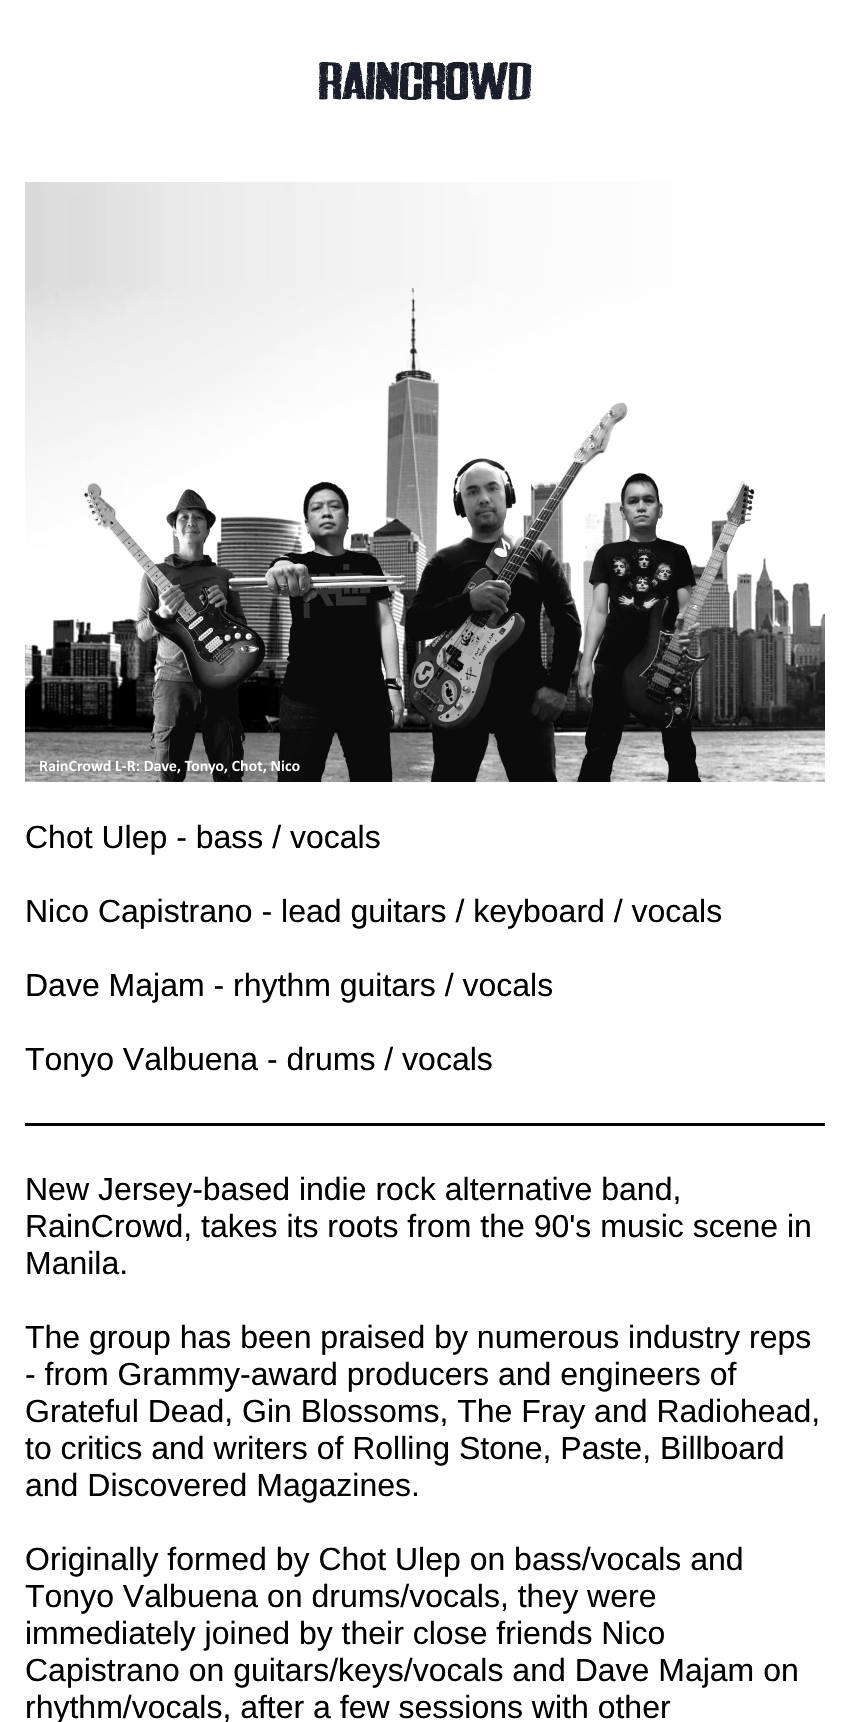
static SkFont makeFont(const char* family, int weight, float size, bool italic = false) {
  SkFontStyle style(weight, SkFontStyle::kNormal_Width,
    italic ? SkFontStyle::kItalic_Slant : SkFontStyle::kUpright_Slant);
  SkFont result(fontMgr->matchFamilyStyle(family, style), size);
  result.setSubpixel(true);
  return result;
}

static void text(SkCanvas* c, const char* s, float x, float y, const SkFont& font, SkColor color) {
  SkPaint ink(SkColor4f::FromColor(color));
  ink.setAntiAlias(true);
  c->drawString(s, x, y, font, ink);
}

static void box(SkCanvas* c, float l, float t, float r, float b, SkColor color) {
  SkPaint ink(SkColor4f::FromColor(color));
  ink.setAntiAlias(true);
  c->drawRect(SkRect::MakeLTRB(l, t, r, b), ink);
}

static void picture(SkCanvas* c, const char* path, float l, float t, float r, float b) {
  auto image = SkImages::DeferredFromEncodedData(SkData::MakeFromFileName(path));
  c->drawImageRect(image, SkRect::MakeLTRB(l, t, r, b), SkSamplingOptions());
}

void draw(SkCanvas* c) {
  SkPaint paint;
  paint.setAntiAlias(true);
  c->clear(0xffffffff);
  picture(c, "img_01.png", 319, 61, 532, 101);
  picture(c, "img_02.png", 25, 182, 825, 782);
  SkFont face1 = makeFont("Liberation Sans", 400, 32);
  text(c, "Chot Ulep - bass / vocals", 25, 848, face1, 0xff000000);
  text(c, "Nico Capistrano - lead guitars / keyboard / vocals", 25, 922, face1, 0xff000000);
  text(c, "Dave Majam - rhythm guitars / vocals", 25, 996, face1, 0xff000000);
  text(c, "Tonyo Valbuena - drums / vocals", 25, 1070, face1, 0xff000000);
  box(c, 25, 1123, 825, 1126, 0xff000000);
  text(c, "New Jersey-based indie rock alternative band,", 25, 1200, face1, 0xff000000);
  text(c, "RainCrowd, takes its roots from the 90's music scene in", 25, 1237, face1, 0xff000000);
  text(c, "Manila.", 25, 1274, face1, 0xff000000);
  text(c, "The group has been praised by numerous industry reps", 25, 1348, face1, 0xff000000);
  text(c, "- from Grammy-award producers and engineers of", 25, 1385, face1, 0xff000000);
  text(c, "Grateful Dead, Gin Blossoms, The Fray and Radiohead,", 25, 1422, face1, 0xff000000);
  text(c, "to critics and writers of Rolling Stone, Paste, Billboard", 25, 1459, face1, 0xff000000);
  text(c, "and Discovered Magazines.", 25, 1496, face1, 0xff000000);
  text(c, "Originally formed by Chot Ulep on bass/vocals and", 25, 1570, face1, 0xff000000);
  text(c, "Tonyo Valbuena on drums/vocals, they were", 25, 1607, face1, 0xff000000);
  text(c, "immediately joined by their close friends Nico", 25, 1644, face1, 0xff000000);
  text(c, "Capistrano on guitars/keys/vocals and Dave Majam on", 25, 1681, face1, 0xff000000);
  text(c, "rhythm/vocals, after a few sessions with other", 25, 1718, face1, 0xff000000);
}
